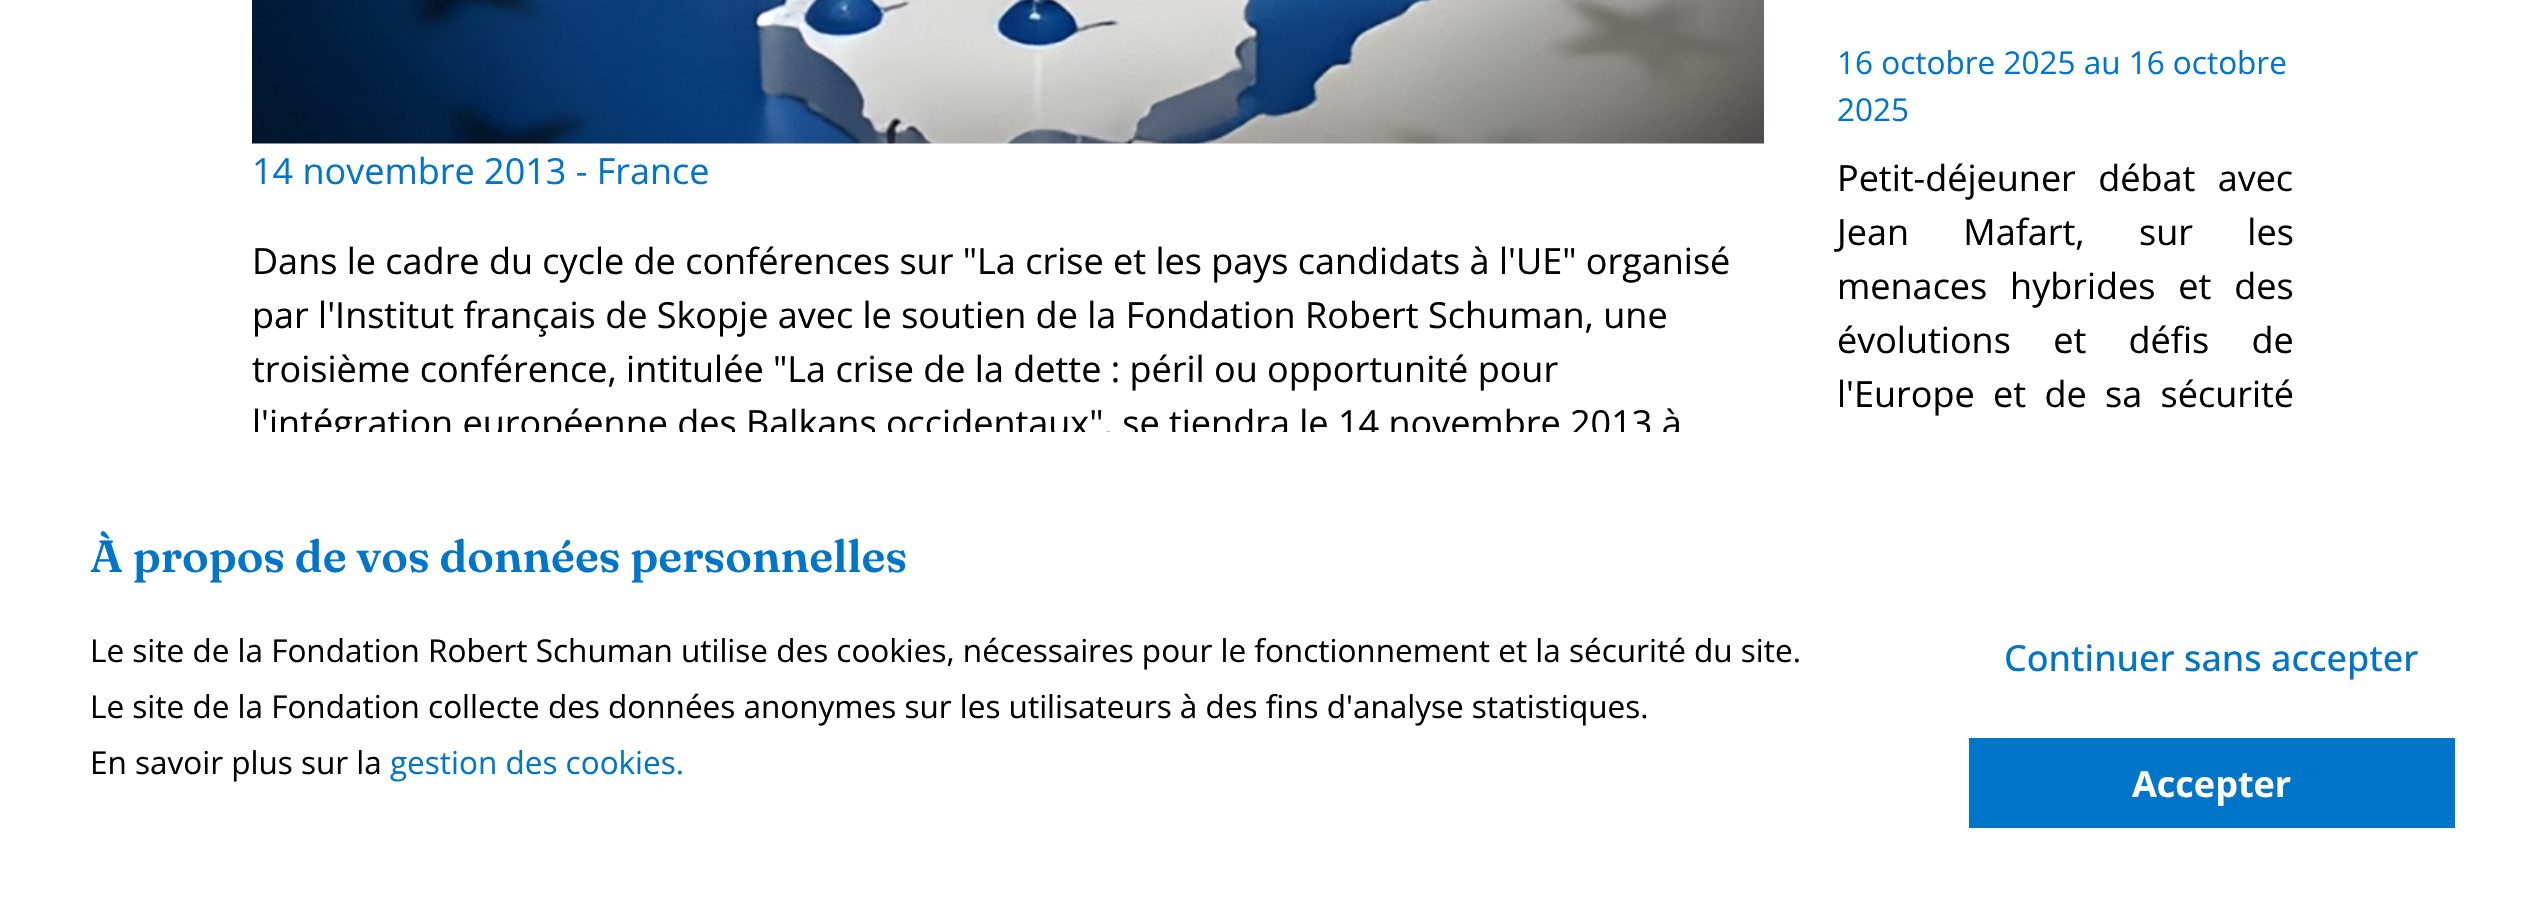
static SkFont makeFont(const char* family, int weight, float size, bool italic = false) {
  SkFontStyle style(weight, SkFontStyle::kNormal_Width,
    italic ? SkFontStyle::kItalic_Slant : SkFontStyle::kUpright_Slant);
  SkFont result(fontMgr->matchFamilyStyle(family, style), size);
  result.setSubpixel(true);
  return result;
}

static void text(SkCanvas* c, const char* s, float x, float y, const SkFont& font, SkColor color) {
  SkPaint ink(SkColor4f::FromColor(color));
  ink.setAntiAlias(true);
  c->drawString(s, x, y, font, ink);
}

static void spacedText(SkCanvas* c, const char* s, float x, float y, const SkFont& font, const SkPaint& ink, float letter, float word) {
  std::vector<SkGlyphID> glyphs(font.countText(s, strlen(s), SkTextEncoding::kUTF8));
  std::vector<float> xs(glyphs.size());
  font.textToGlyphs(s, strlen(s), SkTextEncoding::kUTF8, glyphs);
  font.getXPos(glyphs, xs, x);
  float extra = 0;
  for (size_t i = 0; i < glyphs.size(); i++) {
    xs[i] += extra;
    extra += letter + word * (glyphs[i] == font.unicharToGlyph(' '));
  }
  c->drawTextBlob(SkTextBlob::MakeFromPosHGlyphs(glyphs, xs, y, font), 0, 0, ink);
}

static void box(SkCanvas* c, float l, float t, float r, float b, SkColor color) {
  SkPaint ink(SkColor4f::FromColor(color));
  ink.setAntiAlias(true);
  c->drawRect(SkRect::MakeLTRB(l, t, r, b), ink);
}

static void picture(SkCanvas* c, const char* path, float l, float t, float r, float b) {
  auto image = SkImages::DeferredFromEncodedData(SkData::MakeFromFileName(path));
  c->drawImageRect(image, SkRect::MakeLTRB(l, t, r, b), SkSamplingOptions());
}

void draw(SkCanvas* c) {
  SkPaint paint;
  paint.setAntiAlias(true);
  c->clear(0xffffffff);
  picture(c, "img_01.png", 252, 0, 1764, 144);
  SkFont face1 = makeFont("Open Sans", 400, 36);
  text(c, "14 novembre 2013 - France", 252, 184, face1, 0xff0075c9);
  text(c, "Dans le cadre du cycle de conférences sur \"La crise et les pays candidats à l'UE\" organisé", 252, 274, face1, 0xff000000);
  text(c, "par l'Institut français de Skopje avec le soutien de la Fondation Robert Schuman, une", 252, 328, face1, 0xff000000);
  text(c, "troisième conférence, intitulée \"La crise de la dette : péril ou opportunité pour", 252, 382, face1, 0xff000000);
  text(c, "l'intégration européenne des Balkans occidentaux\", se tiendra le 14 novembre 2013 à", 252, 436, face1, 0xff000000);
  SkFont face2 = makeFont("Open Sans", 400, 31.5f);
  text(c, "16 octobre 2025 au 16 octobre", 1837, 74, face2, 0xff0075c9);
  text(c, "2025", 1837, 121, face2, 0xff0075c9);
  paint.setColor(0xff000000);
  spacedText(c, "Petit-déjeuner débat avec", 1837, 191, face1, paint, 0, 13);
  spacedText(c, "Jean Mafart, sur les", 1837, 245, face1, paint, 0, 45);
  spacedText(c, "menaces hybrides et des", 1837, 299, face1, paint, 0, 13.5f);
  spacedText(c, "évolutions et défis de", 1837, 353, face1, paint, 0, 33);
  spacedText(c, "l'Europe et de sa sécurité", 1837, 407, face1, paint, 0, 9);
  box(c, 255, 432, 1679, 445, 0xffffffff);
  SkFont face3 = makeFont("Fraunces", 600, 45);
  text(c, "À propos de vos données personnelles", 90, 572, face3, 0xff0075c9);
  text(c, "Le site de la Fondation Robert Schuman utilise des cookies, nécessaires pour le fonctionnement et la sécurité du site.", 90, 662, face2, 0xff000000);
  text(c, "Le site de la Fondation collecte des données anonymes sur les utilisateurs à des fins d'analyse statistiques.", 90, 718, face2, 0xff000000);
  text(c, "En savoir plus sur la", 90, 774, face2, 0xff000000);
  text(c, "gestion des cookies.", 390, 774, face2, 0xff0075c9);
  SkFont face4 = makeFont("Open Sans", 500, 36);
  text(c, "Continuer sans accepter", 2004, 671, face4, 0xff0075c9);
  box(c, 1969, 738, 2455, 828, 0xff0075c9);
  SkFont face5 = makeFont("Open Sans", 700, 36);
  text(c, "Accepter", 2132, 797, face5, 0xffffffff);
}
